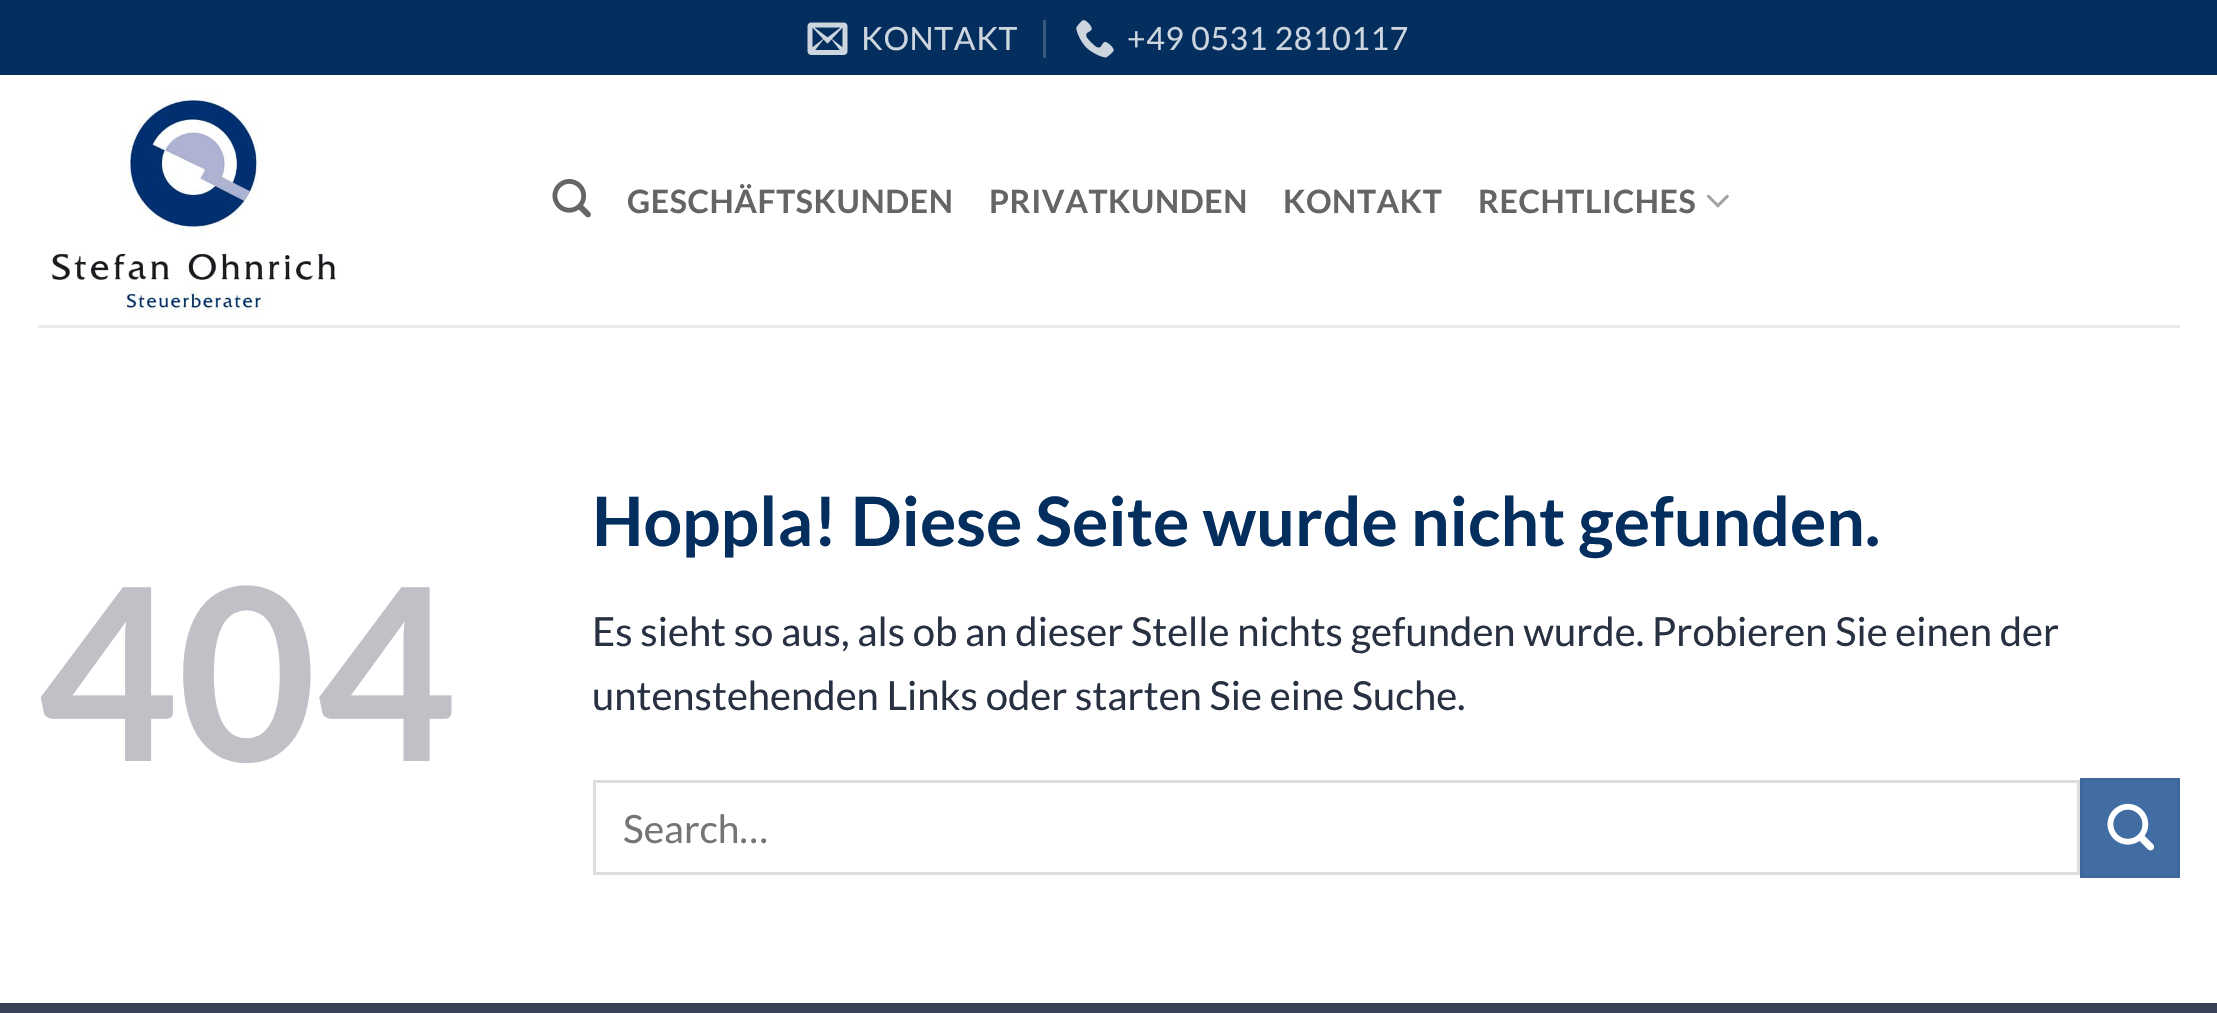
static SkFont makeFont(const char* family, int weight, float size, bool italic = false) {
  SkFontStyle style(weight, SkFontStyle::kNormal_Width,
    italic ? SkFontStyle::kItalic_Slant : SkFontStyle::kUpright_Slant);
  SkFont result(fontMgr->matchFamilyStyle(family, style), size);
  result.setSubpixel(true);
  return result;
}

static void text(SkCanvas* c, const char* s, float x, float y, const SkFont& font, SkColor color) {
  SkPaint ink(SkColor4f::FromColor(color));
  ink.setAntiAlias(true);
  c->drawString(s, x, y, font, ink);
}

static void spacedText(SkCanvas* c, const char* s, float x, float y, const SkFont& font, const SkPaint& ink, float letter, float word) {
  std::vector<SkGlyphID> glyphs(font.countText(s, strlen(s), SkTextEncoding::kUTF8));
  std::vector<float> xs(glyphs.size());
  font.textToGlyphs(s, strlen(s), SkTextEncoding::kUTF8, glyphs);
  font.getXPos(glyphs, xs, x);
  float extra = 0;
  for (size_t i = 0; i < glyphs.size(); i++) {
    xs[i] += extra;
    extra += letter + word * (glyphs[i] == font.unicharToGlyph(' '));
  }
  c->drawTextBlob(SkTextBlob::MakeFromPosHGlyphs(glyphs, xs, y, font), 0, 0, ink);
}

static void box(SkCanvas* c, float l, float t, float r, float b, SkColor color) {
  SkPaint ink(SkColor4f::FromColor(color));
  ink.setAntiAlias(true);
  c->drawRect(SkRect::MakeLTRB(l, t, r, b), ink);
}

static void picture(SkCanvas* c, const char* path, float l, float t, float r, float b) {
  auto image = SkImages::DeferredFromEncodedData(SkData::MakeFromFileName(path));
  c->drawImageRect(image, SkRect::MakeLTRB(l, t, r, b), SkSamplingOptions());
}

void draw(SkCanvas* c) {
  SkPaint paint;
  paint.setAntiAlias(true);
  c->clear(0xffffffff);
  box(c, 0, 0, 2217, 75, 0xff032e5d);
  picture(c, "img_01.png", 807, 22, 848, 55);
  SkFont face1 = makeFont("Lato", 400, 32);
  paint.setColor(0xffcdd5df);
  spacedText(c, "KONTAKT", 861, 50, face1, paint, 0.6f, 0);
  box(c, 1043, 20, 1046, 58, 0xff35587d);
  picture(c, "img_02.png", 1076, 20, 1114, 58);
  spacedText(c, "+49 0531 2810117", 1127, 50, face1, paint, 0.6f, 0);
  picture(c, "img_03.png", 48, 95, 337, 315);
  picture(c, "img_04.png", 552, 179, 591, 218);
  SkFont face2 = makeFont("Lato", 700, 32);
  paint.setColor(0xff656565);
  spacedText(c, "GESCHÄFTSKUNDEN", 627, 213, face2, paint, 0.6f, 0);
  spacedText(c, "PRIVATKUNDEN", 989, 213, face2, paint, 0.6f, 0);
  spacedText(c, "KONTAKT", 1283, 213, face2, paint, 0.6f, 0);
  spacedText(c, "RECHTLICHES", 1478, 213, face2, paint, 0.6f, 0);
  picture(c, "img_05.png", 1706, 194, 1729, 208);
  box(c, 38, 325, 2180, 328, 0xffeaeaec);
  SkFont face3 = makeFont("Lato", 700, 240);
  text(c, "404", 38, 761, face3, 0xffbfc1c6);
  SkFont face4 = makeFont("Lato", 700, 68);
  text(c, "Hoppla! Diese Seite wurde nicht gefunden.", 592, 546, face4, 0xff032e5d);
  SkFont face5 = makeFont("Lato", 400, 40);
  text(c, "Es sieht so aus, als ob an dieser Stelle nichts gefunden wurde. Probieren Sie einen der", 592, 646, face5, 0xff283142);
  text(c, "untenstehenden Links oder starten Sie eine Suche.", 592, 710, face5, 0xff283142);
  paint.setStyle(SkPaint::kStroke_Style);
  paint.setStrokeWidth(3);
  paint.setColor(0xffdddddd);
  c->drawRect(SkRect::MakeLTRB(594.5f, 781.5f, 2078.5f, 873.5f), paint);
  SkFont face6 = makeFont("Lato", 400, 39);
  text(c, "Search…", 623, 843, face6, 0xff757575);
  paint.setStyle(SkPaint::kFill_Style);
  paint.setColor(0xff426da2);
  c->drawRect(SkRect::MakeLTRB(2081.5f, 779.5f, 2178.5f, 876.5f), paint);
  paint.setStyle(SkPaint::kStroke_Style);
  paint.setColor(0xff3f689a);
  c->drawRect(SkRect::MakeLTRB(2081.5f, 779.5f, 2178.5f, 876.5f), paint);
  picture(c, "img_06.png", 2107, 803, 2154, 851);
  box(c, 0, 1006, 2217, 1013, 0xff384357);
  box(c, 0, 1003, 2217, 1006, 0xff354053);
}
